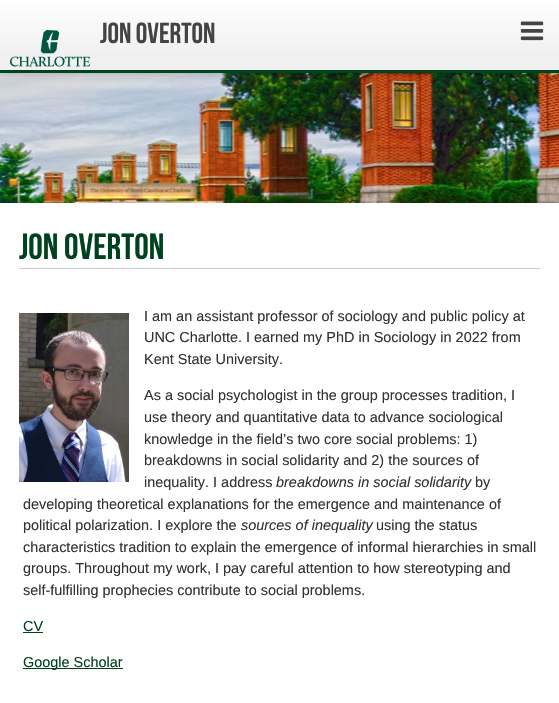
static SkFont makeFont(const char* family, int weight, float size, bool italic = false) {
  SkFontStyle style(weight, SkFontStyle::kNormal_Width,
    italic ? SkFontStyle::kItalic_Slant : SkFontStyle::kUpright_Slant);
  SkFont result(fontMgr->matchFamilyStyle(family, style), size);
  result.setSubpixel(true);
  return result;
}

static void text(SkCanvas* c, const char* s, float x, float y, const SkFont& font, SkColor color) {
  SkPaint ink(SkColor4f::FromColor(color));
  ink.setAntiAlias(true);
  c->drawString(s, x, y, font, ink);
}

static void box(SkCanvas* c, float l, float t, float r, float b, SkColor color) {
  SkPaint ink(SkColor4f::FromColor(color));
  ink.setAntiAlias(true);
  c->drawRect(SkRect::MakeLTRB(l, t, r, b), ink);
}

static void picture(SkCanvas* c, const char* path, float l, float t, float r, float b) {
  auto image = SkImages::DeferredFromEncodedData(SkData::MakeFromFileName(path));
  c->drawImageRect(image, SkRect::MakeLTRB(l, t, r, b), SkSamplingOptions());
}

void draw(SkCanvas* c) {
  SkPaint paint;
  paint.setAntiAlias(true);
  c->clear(0xffffffff);
  picture(c, "img_03.png", 0, 73, 559, 203);
  paint.setColor(0x33000000);
  paint.setMaskFilter(SkMaskFilter::MakeBlur(kNormal_SkBlurStyle, 3.5f));
  c->drawRect(SkRect::MakeLTRB(0, 0, 559, 73), paint);
  paint.setMaskFilter(nullptr);
  {
    const SkColor colors[] = {0xffffffff, 0xfff0f0f0};
    const float stops[] = {0, 0.8f};
    const SkPoint ends[] = {{280, 0}, {280, 70}};
    paint.setShader(SkGradientShader::MakeLinear(ends, colors, stops, 2, SkTileMode::kClamp));
    paint.setAlpha(255);
  }
  c->drawRect(SkRect::MakeLTRB(0, 0, 559, 70), paint);
  box(c, 0, 70, 559, 73, 0xff00421e);
  picture(c, "img_01.png", 10, 30, 90, 67);
  SkFont face1 = makeFont("Bebas Neue", 700, 29);
  text(c, "Jon Overton", 100, 43, face1, 0xff444444);
  picture(c, "img_02.png", 520, 21, 544, 41);
  box(c, 19, 268, 540, 269, 0xffcccccc);
  SkFont face2 = makeFont("Bebas Neue", 700, 36.5f);
  text(c, "Jon Overton", 19, 259, face2, 0xff00421e);
  picture(c, "img_04.png", 19, 313, 129, 482);
  SkFont face3 = makeFont("Liberation Sans", 400, 14.45f);
  text(c, "I am an assistant professor of sociology and public policy at", 144, 321, face3, 0xff333333);
  text(c, "UNC Charlotte. I earned my PhD in Sociology in 2022 from", 144, 342, face3, 0xff333333);
  text(c, "Kent State University.", 144, 364, face3, 0xff333333);
  text(c, "As a social psychologist in the group processes tradition, I", 144, 400, face3, 0xff333333);
  text(c, "use theory and quantitative data to advance sociological", 144, 422, face3, 0xff333333);
  text(c, "knowledge in the field’s two core social problems: 1)", 144, 444, face3, 0xff333333);
  text(c, "breakdowns in social solidarity and 2) the sources of", 144, 465, face3, 0xff333333);
  text(c, "inequality. I address", 144, 487, face3, 0xff333333);
  SkFont face4 = makeFont("Liberation Sans", 400, 14.45f, true);
  text(c, "breakdowns in social solidarity", 276, 487, face4, 0xff333333);
  text(c, "by", 475, 487, face3, 0xff333333);
  text(c, "developing theoretical explanations for the emergence and maintenance of", 23, 509, face3, 0xff333333);
  text(c, "political polarization. I explore the", 23, 530, face3, 0xff333333);
  text(c, "sources of inequality", 241, 530, face4, 0xff333333);
  text(c, "using the status", 376, 530, face3, 0xff333333);
  text(c, "characteristics tradition to explain the emergence of informal hierarchies in small", 23, 552, face3, 0xff333333);
  text(c, "groups. Throughout my work, I pay careful attention to how stereotyping and", 23, 573, face3, 0xff333333);
  text(c, "self-fulfilling prophecies contribute to social problems.", 23, 595, face3, 0xff333333);
  text(c, "CV", 23, 631, face3, 0xff00421e);
  box(c, 23, 632, 43, 633, 0xff00421e);
  box(c, 23, 668, 123, 669, 0xff00421e);
  text(c, "Google Scholar", 23, 667, face3, 0xff00421e);
}
